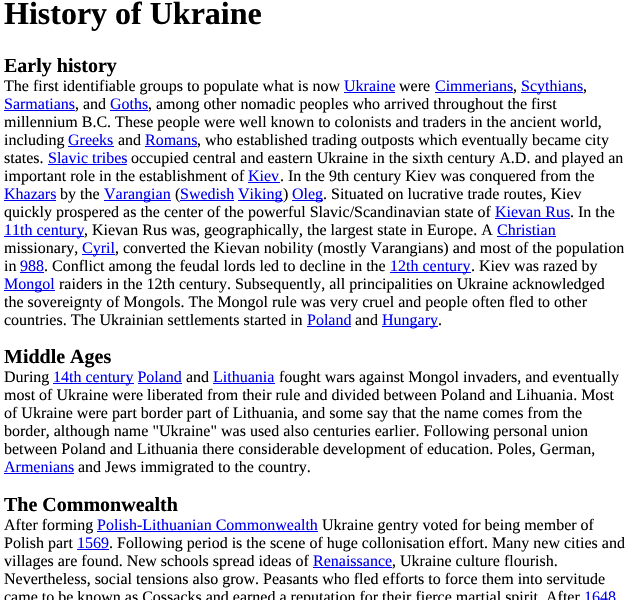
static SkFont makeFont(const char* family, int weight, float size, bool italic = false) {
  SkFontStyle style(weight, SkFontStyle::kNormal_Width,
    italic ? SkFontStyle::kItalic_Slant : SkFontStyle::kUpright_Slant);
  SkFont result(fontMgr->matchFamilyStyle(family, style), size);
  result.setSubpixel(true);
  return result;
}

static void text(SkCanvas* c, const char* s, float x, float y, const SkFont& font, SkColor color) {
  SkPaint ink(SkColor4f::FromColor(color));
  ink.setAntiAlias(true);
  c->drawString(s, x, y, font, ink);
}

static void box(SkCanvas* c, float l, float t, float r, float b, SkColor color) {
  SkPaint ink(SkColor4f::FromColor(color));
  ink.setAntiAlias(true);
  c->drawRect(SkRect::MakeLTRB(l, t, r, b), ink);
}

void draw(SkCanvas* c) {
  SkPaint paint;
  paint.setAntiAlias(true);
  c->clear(0xffffffff);
  SkFont face1 = makeFont("Liberation Serif", 700, 32);
  text(c, "History of Ukraine", 4, 24, face1, 0xff000000);
  SkFont face2 = makeFont("Liberation Serif", 700, 20);
  text(c, "Early history", 4, 72, face2, 0xff000000);
  SkFont face3 = makeFont("Liberation Serif", 400, 16);
  text(c, "The first identifiable groups to populate what is now", 4, 91, face3, 0xff000000);
  text(c, "Ukraine", 344, 91, face3, 0xff0000ee);
  box(c, 344, 92, 395, 93, 0xff0000ee);
  text(c, "were", 399, 91, face3, 0xff000000);
  text(c, "Cimmerians", 435, 91, face3, 0xff0000ee);
  box(c, 435, 92, 513, 93, 0xff0000ee);
  text(c, ",", 513, 91, face3, 0xff000000);
  box(c, 521, 92, 583, 93, 0xff0000ee);
  text(c, "Scythians", 521, 91, face3, 0xff0000ee);
  text(c, ",", 583, 91, face3, 0xff000000);
  text(c, "Sarmatians", 4, 109, face3, 0xff0000ee);
  box(c, 4, 110, 75, 111, 0xff0000ee);
  text(c, ", and", 75, 109, face3, 0xff000000);
  text(c, "Goths", 110, 109, face3, 0xff0000ee);
  box(c, 110, 110, 148, 111, 0xff0000ee);
  text(c, ", among other nomadic peoples who arrived throughout the first", 148, 109, face3, 0xff000000);
  text(c, "millennium B.C. These people were well known to colonists and traders in the ancient world,", 4, 127, face3, 0xff000000);
  text(c, "including", 4, 145, face3, 0xff000000);
  text(c, "Greeks", 68, 145, face3, 0xff0000ee);
  box(c, 68, 146, 114, 147, 0xff0000ee);
  text(c, "and", 118, 145, face3, 0xff000000);
  text(c, "Romans", 145, 145, face3, 0xff0000ee);
  box(c, 145, 146, 197, 147, 0xff0000ee);
  text(c, ", who established trading outposts which eventually became city", 197, 145, face3, 0xff000000);
  text(c, "states.", 4, 163, face3, 0xff000000);
  text(c, "Slavic tribes", 48, 163, face3, 0xff0000ee);
  box(c, 48, 164, 127, 165, 0xff0000ee);
  text(c, "occupied central and eastern Ukraine in the sixth century A.D. and played an", 131, 163, face3, 0xff000000);
  text(c, "important role in the establishment of", 4, 181, face3, 0xff000000);
  text(c, "Kiev", 248, 181, face3, 0xff0000ee);
  box(c, 248, 182, 280, 183, 0xff0000ee);
  text(c, ". In the 9th century Kiev was conquered from the", 280, 181, face3, 0xff000000);
  text(c, "Khazars", 4, 199, face3, 0xff0000ee);
  box(c, 4, 200, 56, 201, 0xff0000ee);
  text(c, "by the", 60, 199, face3, 0xff000000);
  box(c, 104, 200, 171, 201, 0xff0000ee);
  text(c, "Varangian", 104, 199, face3, 0xff0000ee);
  text(c, "(", 175, 199, face3, 0xff000000);
  text(c, "Swedish", 180, 199, face3, 0xff0000ee);
  box(c, 180, 200, 234, 201, 0xff0000ee);
  box(c, 238, 200, 283, 201, 0xff0000ee);
  text(c, "Viking", 238, 199, face3, 0xff0000ee);
  text(c, ")", 283, 199, face3, 0xff000000);
  box(c, 292, 200, 323, 201, 0xff0000ee);
  text(c, "Oleg", 292, 199, face3, 0xff0000ee);
  text(c, ". Situated on lucrative trade routes, Kiev", 323, 199, face3, 0xff000000);
  text(c, "quickly prospered as the center of the powerful Slavic/Scandinavian state of", 4, 217, face3, 0xff000000);
  text(c, "Kievan Rus", 495, 217, face3, 0xff0000ee);
  box(c, 495, 218, 570, 219, 0xff0000ee);
  text(c, ". In the", 570, 217, face3, 0xff000000);
  box(c, 4, 236, 84, 237, 0xff0000ee);
  text(c, "11th century", 4, 235, face3, 0xff0000ee);
  text(c, ", Kievan Rus was, geographically, the largest state in Europe. A", 84, 235, face3, 0xff000000);
  text(c, "Christian", 497, 235, face3, 0xff0000ee);
  box(c, 497, 236, 556, 237, 0xff0000ee);
  text(c, "missionary,", 4, 253, face3, 0xff000000);
  box(c, 82, 254, 115, 255, 0xff0000ee);
  text(c, "Cyril", 82, 253, face3, 0xff0000ee);
  text(c, ", converted the Kievan nobility (mostly Varangians) and most of the population", 115, 253, face3, 0xff000000);
  text(c, "in", 4, 271, face3, 0xff000000);
  text(c, "988", 20, 271, face3, 0xff0000ee);
  box(c, 20, 272, 44, 273, 0xff0000ee);
  text(c, ". Conflict among the feudal lords led to decline in the", 44, 271, face3, 0xff000000);
  box(c, 390, 272, 471, 273, 0xff0000ee);
  text(c, "12th century", 390, 271, face3, 0xff0000ee);
  text(c, ". Kiev was razed by", 471, 271, face3, 0xff000000);
  box(c, 4, 290, 55, 291, 0xff0000ee);
  text(c, "Mongol", 4, 289, face3, 0xff0000ee);
  text(c, "raiders in the 12th century. Subsequently, all principalities on Ukraine acknowledged", 59, 289, face3, 0xff000000);
  text(c, "the sovereignty of Mongols. The Mongol rule was very cruel and people often fled to other", 4, 307, face3, 0xff000000);
  text(c, "countries. The Ukrainian settlements started in", 4, 325, face3, 0xff000000);
  text(c, "Poland", 307, 325, face3, 0xff0000ee);
  box(c, 307, 326, 351, 327, 0xff0000ee);
  text(c, "and", 355, 325, face3, 0xff000000);
  box(c, 382, 326, 438, 327, 0xff0000ee);
  text(c, "Hungary", 382, 325, face3, 0xff0000ee);
  text(c, ".", 438, 325, face3, 0xff000000);
  text(c, "Middle Ages", 4, 363, face2, 0xff000000);
  text(c, "During", 4, 382, face3, 0xff000000);
  box(c, 53, 383, 134, 384, 0xff0000ee);
  text(c, "14th century Poland", 53, 382, face3, 0xff0000ee);
  text(c, "and", 186, 382, face3, 0xff000000);
  text(c, "Lithuania", 213, 382, face3, 0xff0000ee);
  box(c, 213, 383, 275, 384, 0xff0000ee);
  text(c, "fought wars against Mongol invaders, and eventually", 279, 382, face3, 0xff000000);
  box(c, 138, 383, 182, 384, 0xff0000ee);
  text(c, "most of Ukraine were liberated from their rule and divided between Poland and Lihuania. Most", 4, 400, face3, 0xff000000);
  text(c, "of Ukraine were part border part of Lithuania, and some say that the name comes from the", 4, 418, face3, 0xff000000);
  text(c, "border, although name \"Ukraine\" was used also centuries earlier. Following personal union", 4, 436, face3, 0xff000000);
  text(c, "between Poland and Lithuania there considerable development of education. Poles, German,", 4, 454, face3, 0xff000000);
  text(c, "Armenians", 4, 472, face3, 0xff0000ee);
  box(c, 4, 473, 74, 474, 0xff0000ee);
  text(c, "and Jews immigrated to the country.", 78, 472, face3, 0xff000000);
  text(c, "The Commonwealth", 4, 511, face2, 0xff000000);
  text(c, "After forming", 4, 530, face3, 0xff000000);
  text(c, "Polish-Lithuanian Commonwealth", 97, 530, face3, 0xff0000ee);
  box(c, 97, 531, 318, 532, 0xff0000ee);
  text(c, "Ukraine gentry voted for being member of", 322, 530, face3, 0xff000000);
  text(c, "Polish part", 4, 548, face3, 0xff000000);
  text(c, "1569", 77, 548, face3, 0xff0000ee);
  box(c, 77, 549, 109, 550, 0xff0000ee);
  text(c, ". Following period is the scene of huge collonisation effort. Many new cities and", 109, 548, face3, 0xff000000);
  text(c, "villages are found. New schools spread ideas of", 4, 566, face3, 0xff000000);
  text(c, "Renaissance", 313, 566, face3, 0xff0000ee);
  box(c, 313, 567, 392, 568, 0xff0000ee);
  text(c, ", Ukraine culture flourish.", 392, 566, face3, 0xff000000);
  text(c, "Nevertheless, social tensions also grow. Peasants who fled efforts to force them into servitude", 4, 584, face3, 0xff000000);
  text(c, "came to be known as Cossacks and earned a reputation for their fierce martial spirit. After", 4, 602, face3, 0xff000000);
  text(c, "1648", 584, 602, face3, 0xff0000ee);
}
